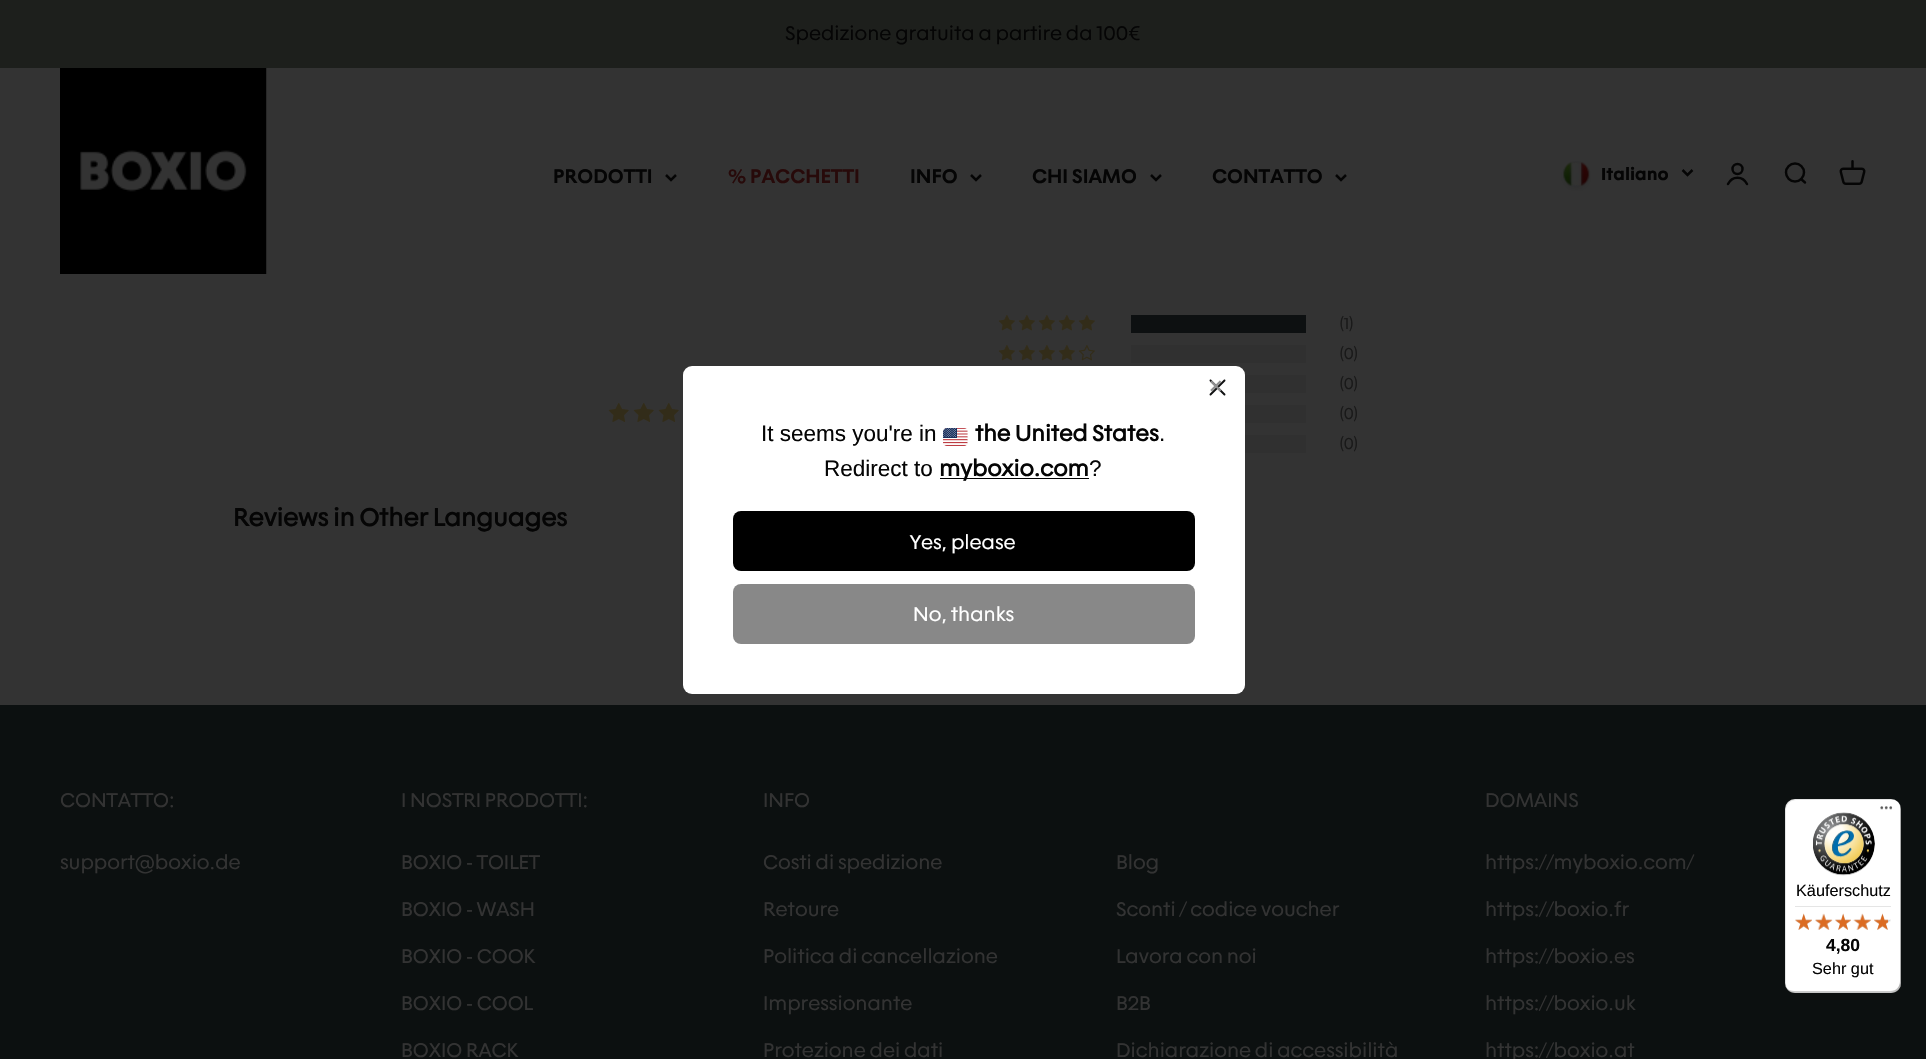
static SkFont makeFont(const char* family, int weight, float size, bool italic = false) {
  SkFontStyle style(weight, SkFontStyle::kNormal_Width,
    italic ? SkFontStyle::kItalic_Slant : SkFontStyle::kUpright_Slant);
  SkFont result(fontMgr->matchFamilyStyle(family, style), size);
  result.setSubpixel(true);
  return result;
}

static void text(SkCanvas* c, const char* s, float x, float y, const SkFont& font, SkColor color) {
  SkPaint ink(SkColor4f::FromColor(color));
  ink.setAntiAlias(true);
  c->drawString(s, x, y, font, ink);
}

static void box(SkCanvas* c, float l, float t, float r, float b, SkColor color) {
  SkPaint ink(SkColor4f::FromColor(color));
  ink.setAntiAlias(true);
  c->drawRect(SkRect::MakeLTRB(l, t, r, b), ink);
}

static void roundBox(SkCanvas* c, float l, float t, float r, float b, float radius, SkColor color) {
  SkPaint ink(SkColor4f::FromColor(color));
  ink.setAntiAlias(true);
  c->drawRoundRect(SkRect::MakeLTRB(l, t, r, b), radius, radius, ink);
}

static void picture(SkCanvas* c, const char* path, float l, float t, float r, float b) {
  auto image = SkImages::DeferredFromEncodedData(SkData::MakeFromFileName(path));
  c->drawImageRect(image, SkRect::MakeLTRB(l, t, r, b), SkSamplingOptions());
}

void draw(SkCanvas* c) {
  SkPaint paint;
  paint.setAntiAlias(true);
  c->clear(0xff333333);
  box(c, 0, 0, 1926, 68, 0xff1d1f1c);
  SkFont face1 = makeFont("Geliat", 400, 20);
  text(c, "Spedizione gratuita a partire da 100€", 785, 40, face1, 0xff050505);
  picture(c, "img_01.png", 60, 68, 267, 274);
  SkFont face2 = makeFont("Geliat", 600, 20);
  text(c, "PRODOTTI", 553, 183, face2, 0xff050505);
  paint.setStyle(SkPaint::kStroke_Style);
  paint.setStrokeWidth(2.5f);
  paint.setColor(0xff050505);
  c->drawPath(SkPathBuilder().moveTo(666, 175).lineTo(671, 180).lineTo(676, 175).detach(), paint);
  text(c, "% PACCHETTI", 728, 183, face2, 0xff270a0a);
  text(c, "INFO", 910, 183, face2, 0xff050505);
  c->drawPath(SkPathBuilder().moveTo(971, 175).lineTo(976, 180).lineTo(981, 175).detach(), paint);
  text(c, "CHI SIAMO", 1032, 183, face2, 0xff050505);
  c->drawPath(SkPathBuilder().moveTo(1151, 175).lineTo(1156, 180).lineTo(1161, 175).detach(), paint);
  text(c, "CONTATTO", 1212, 183, face2, 0xff050505);
  c->drawPath(SkPathBuilder().moveTo(1336, 175).lineTo(1341, 180).lineTo(1346, 175).detach(), paint);
  picture(c, "img_02.png", 1561, 161, 1591, 191);
  SkFont face3 = makeFont("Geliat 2", 700, 17.5f);
  text(c, "Italiano", 1601, 180, face3, 0xff050505);
  c->drawPath(SkPathBuilder().moveTo(1682.5f, 170).lineTo(1687.5f, 175).lineTo(1692.5f, 170).detach(), paint);
  c->drawCircle(1737.5f, 169, 5, paint);
  paint.setStrokeCap(SkPaint::kRound_Cap);
  c->drawPath(SkPathBuilder().moveTo(1728, 184).cubicTo(1732, 175.5f, 1743, 175.5f, 1747, 184).detach(), paint);
  paint.setStrokeCap(SkPaint::kButt_Cap);
  c->drawCircle(1795, 172.5f, 9, paint);
  paint.setStrokeCap(SkPaint::kRound_Cap);
  paint.setStrokeJoin(SkPaint::kRound_Join);
  c->drawPath(SkPathBuilder().moveTo(1801, 179).lineTo(1805, 182.5f).detach(), paint);
  picture(c, "img_03.png", 1839, 160, 1866, 185);
  picture(c, "img_04.png", 608, 403, 629, 422);
  picture(c, "img_04.png", 633, 403, 654, 422);
  picture(c, "img_04.png", 658, 403, 679, 422);
  picture(c, "img_05.png", 998, 315, 1015, 331);
  picture(c, "img_05.png", 1018, 315, 1035, 331);
  picture(c, "img_05.png", 1038, 315, 1055, 331);
  picture(c, "img_05.png", 1058, 315, 1075, 331);
  picture(c, "img_05.png", 1078, 315, 1095, 331);
  box(c, 1131, 315, 1306, 333, 0xff0d1011);
  SkFont face4 = makeFont("Geliat", 400, 16);
  text(c, "(1)", 1339, 329, face4, 0xff191919);
  picture(c, "img_05.png", 998, 345, 1015, 361);
  picture(c, "img_05.png", 1018, 345, 1035, 361);
  picture(c, "img_05.png", 1038, 345, 1055, 361);
  picture(c, "img_05.png", 1058, 345, 1075, 361);
  picture(c, "img_06.png", 1078, 345, 1095, 361);
  box(c, 1131, 345, 1306, 363, 0xff303030);
  text(c, "(0)", 1339, 359, face4, 0xff191919);
  box(c, 1245, 375, 1306, 393, 0xff303030);
  text(c, "(0)", 1339, 389, face4, 0xff191919);
  box(c, 1245, 405, 1306, 423, 0xff303030);
  text(c, "(0)", 1339, 419, face4, 0xff191919);
  box(c, 1245, 435, 1306, 453, 0xff303030);
  text(c, "(0)", 1339, 449, face4, 0xff191919);
  SkFont face5 = makeFont("Geliat", 700, 25);
  text(c, "Reviews in Other Languages", 233, 526, face5, 0xff050505);
  box(c, 0, 705, 1926, 1059, 0xff0c1010);
  text(c, "CONTATTO:", 60, 807, face1, 0xff333333);
  text(c, "support@boxio.de", 60, 869, face1, 0xff333333);
  text(c, "I NOSTRI PRODOTTI:", 401, 807, face1, 0xff333333);
  text(c, "BOXIO - TOILET", 401, 869, face1, 0xff333333);
  text(c, "BOXIO - WASH", 401, 916, face1, 0xff333333);
  text(c, "BOXIO - COOK", 401, 963, face1, 0xff333333);
  text(c, "BOXIO - COOL", 401, 1010, face1, 0xff333333);
  text(c, "BOXIO RACK", 401, 1057, face1, 0xff333333);
  text(c, "INFO", 763, 807, face1, 0xff333333);
  text(c, "Costi di spedizione", 763, 869, face1, 0xff333333);
  text(c, "Blog", 1116, 869, face1, 0xff333333);
  text(c, "Retoure", 763, 916, face1, 0xff333333);
  text(c, "Sconti / codice voucher", 1116, 916, face1, 0xff333333);
  text(c, "Politica di cancellazione", 763, 963, face1, 0xff333333);
  text(c, "Lavora con noi", 1116, 963, face1, 0xff333333);
  text(c, "Impressionante", 763, 1010, face1, 0xff333333);
  text(c, "B2B", 1116, 1010, face1, 0xff333333);
  text(c, "Protezione dei dati", 763, 1057, face1, 0xff333333);
  text(c, "Dichiarazione di accessibilità", 1116, 1057, face1, 0xff333333);
  text(c, "DOMAINS", 1485, 807, face1, 0xff333333);
  text(c, "https://myboxio.com/", 1485, 869, face1, 0xff333333);
  text(c, "https://boxio.fr", 1485, 916, face1, 0xff333333);
  text(c, "https://boxio.es", 1485, 963, face1, 0xff333333);
  text(c, "https://boxio.uk", 1485, 1010, face1, 0xff333333);
  text(c, "https://boxio.at", 1485, 1057, face1, 0xff333333);
  roundBox(c, 683, 366, 1245, 694, 9, 0xffffffff);
  picture(c, "img_07.png", 1209, 379, 1226, 396);
  SkFont face6 = makeFont("Geliat", 400, 29);
  text(c, "×", 1207, 396, face6, 0xff8f8f90);
  SkFont face7 = makeFont("Liberation Sans", 400, 22.5f);
  text(c, "It seems you're in", 761, 441, face7, 0xff050505);
  picture(c, "img_08.png", 943, 428, 968, 446);
  SkFont face8 = makeFont("Geliat", 700, 22.5f);
  text(c, "the United States", 975, 441, face8, 0xff050505);
  text(c, ".", 1159, 441, face7, 0xff050505);
  text(c, "Redirect to", 824, 476, face7, 0xff050505);
  box(c, 940, 478, 1089, 479, 0xff000000);
  text(c, "myboxio.com", 939, 476, face8, 0xff050505);
  text(c, "?", 1089, 476, face7, 0xff050505);
  roundBox(c, 733, 511, 1195, 571, 8, 0xff000000);
  text(c, "Yes, please", 910, 549, face1, 0xffffffff);
  roundBox(c, 733, 584, 1195, 644, 8, 0xff888888);
  text(c, "No, thanks", 913, 621, face1, 0xffffffff);
  roundBox(c, 1785, 799, 1901, 993, 10, 0xffffffff);
  paint.setStyle(SkPaint::kFill_Style);
  paint.setColor(0x1a000000);
  c->drawPath(SkPathBuilder().moveTo(1796, 800).lineTo(1892, 800).cubicTo(1894, 800, 1896, 800, 1897, 801).cubicTo(1896, 800, 1893, 799, 1891, 799).lineTo(1795, 799).cubicTo(1789, 799, 1785, 803, 1785, 809).lineTo(1785, 983).cubicTo(1785, 987, 1787, 990, 1790, 992).cubicTo(1788, 990, 1786, 987, 1786, 984).lineTo(1786, 810).cubicTo(1786, 804, 1791, 800, 1796, 800).close().detach(), paint);
  paint.setColor(0x33000000);
  c->drawPath(SkPathBuilder().moveTo(1786, 987).cubicTo(1788, 991, 1791, 993, 1795, 993).lineTo(1891, 993).cubicTo(1897, 993, 1901, 989, 1901, 983).lineTo(1901, 809).cubicTo(1901, 807, 1900, 804, 1899, 803).cubicTo(1900, 804, 1900, 806, 1900, 808).lineTo(1900, 981).cubicTo(1900, 987, 1896, 991, 1890, 991).lineTo(1794, 991).cubicTo(1791, 991, 1788, 990, 1786, 987).close().detach(), paint);
  paint.setColor(0x33323232);
  c->drawPath(SkPathBuilder().moveTo(1786, 988).cubicTo(1788, 991, 1791, 993, 1795, 993).lineTo(1891, 993).cubicTo(1897, 993, 1901, 989, 1901, 983).lineTo(1901, 809).cubicTo(1901, 807, 1900, 804, 1899, 803).cubicTo(1900, 804, 1900, 806, 1900, 808).lineTo(1900, 982).cubicTo(1900, 987, 1896, 992, 1890, 992).lineTo(1794, 992).cubicTo(1791, 992, 1788, 990, 1786, 988).close().detach(), paint);
  picture(c, "img_09.png", 1880, 806, 1893, 810);
  paint.setColor(0x4dffffff);
  c->drawPath(SkPathBuilder().moveTo(1786, 988).cubicTo(1788, 991, 1791, 993, 1795, 993).lineTo(1891, 993).cubicTo(1897, 993, 1901, 989, 1901, 983).lineTo(1901, 982).cubicTo(1901, 987, 1896, 992, 1891, 992).lineTo(1794, 992).cubicTo(1791, 992, 1788, 990, 1786, 988).close().detach(), paint);
  picture(c, "img_10.png", 1813, 812, 1875, 876);
  SkFont face9 = makeFont("Liberation Sans", 400, 16.25f);
  text(c, "Käuferschutz", 1796, 896, face9, 0xff050505);
  box(c, 1795, 906, 1891, 907, 0xffe5e5e5);
  picture(c, "img_16.png", 1795, 914, 1812, 930);
  picture(c, "img_11.png", 1795, 913, 1812, 930);
  picture(c, "img_17.png", 1815, 914, 1832, 930);
  picture(c, "img_12.png", 1815, 913, 1833, 930);
  picture(c, "img_18.png", 1835, 914, 1851, 930);
  picture(c, "img_13.png", 1835, 913, 1851, 930);
  picture(c, "img_19.png", 1853, 914, 1871, 930);
  picture(c, "img_14.png", 1853, 913, 1871, 930);
  picture(c, "img_20.png", 1874, 914, 1891, 930);
  picture(c, "img_15.png", 1874, 913, 1888, 930);
  SkFont face10 = makeFont("Liberation Sans", 700, 17.5f);
  text(c, "4,80", 1826, 951, face10, 0xff050505);
  text(c, "Sehr gut", 1812, 974, face9, 0xff050505);
}
